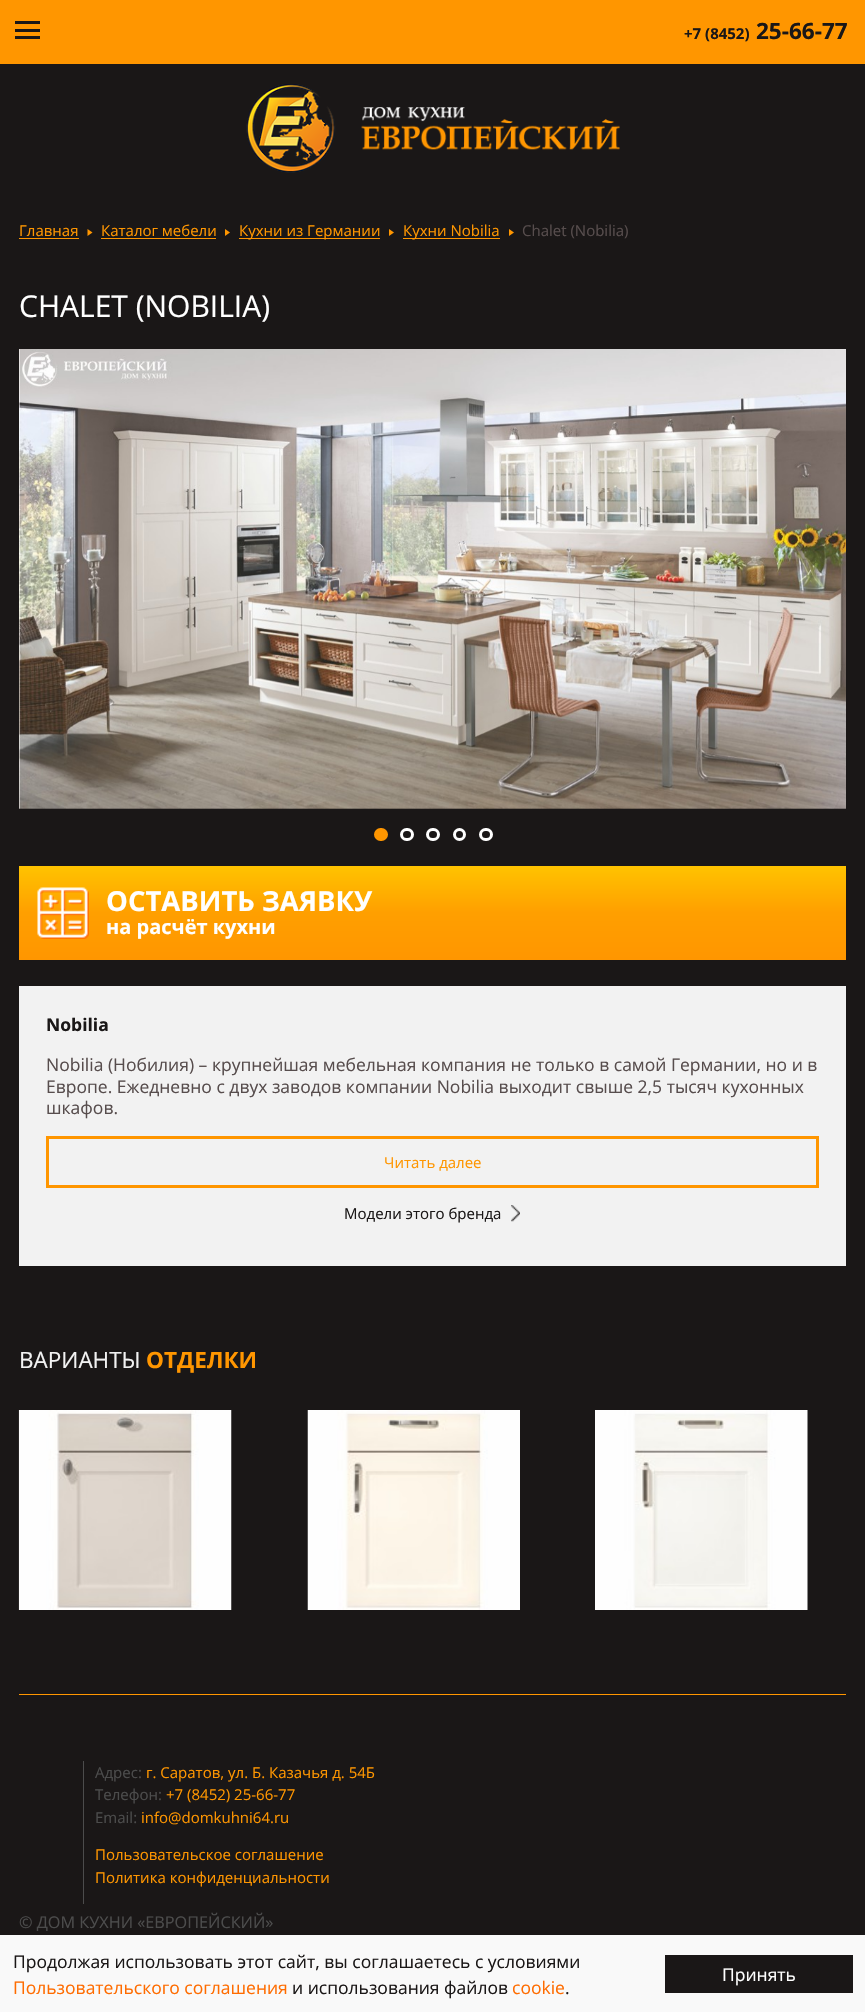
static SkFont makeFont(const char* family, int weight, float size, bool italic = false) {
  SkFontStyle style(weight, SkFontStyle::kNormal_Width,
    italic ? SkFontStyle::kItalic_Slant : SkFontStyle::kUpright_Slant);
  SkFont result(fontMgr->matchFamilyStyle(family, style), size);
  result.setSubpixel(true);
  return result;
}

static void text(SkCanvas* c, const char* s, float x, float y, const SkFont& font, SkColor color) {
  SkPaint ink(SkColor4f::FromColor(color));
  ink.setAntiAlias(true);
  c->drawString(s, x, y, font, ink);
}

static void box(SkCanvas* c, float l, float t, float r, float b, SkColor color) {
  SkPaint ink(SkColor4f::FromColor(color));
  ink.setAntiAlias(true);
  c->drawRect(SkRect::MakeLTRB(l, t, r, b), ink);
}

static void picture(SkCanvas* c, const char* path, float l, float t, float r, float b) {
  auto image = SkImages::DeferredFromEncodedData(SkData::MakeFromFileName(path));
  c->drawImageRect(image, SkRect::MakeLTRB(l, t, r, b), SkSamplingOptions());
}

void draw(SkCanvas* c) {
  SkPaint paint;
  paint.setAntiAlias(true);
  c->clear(0xff1a1717);
  box(c, 0, 0, 865, 64, 0xffff9600);
  box(c, 15, 29, 40, 32, 0xff1a1717);
  box(c, 15, 21, 40, 24, 0xff1a1717);
  box(c, 15, 36, 40, 39, 0xff1a1717);
  SkFont face1 = makeFont("Open Sans", 700, 15);
  text(c, "+7 (8452)", 684, 39, face1, 0xff1a1717);
  SkFont face2 = makeFont("Open Sans", 700, 22.5f);
  text(c, "25-66-77", 756, 39, face2, 0xff1a1717);
  picture(c, "img_01.png", 246, 84, 620, 173);
  SkFont face3 = makeFont("Open Sans", 400, 15);
  text(c, "Главная", 19, 236, face3, 0xffff9600);
  box(c, 19, 238, 79, 239, 0xffff9600);
  paint.setColor(0xffff9600);
  c->drawPath(SkPathBuilder().moveTo(87.5f, 236).lineTo(87.5f, 229).lineTo(92.5f, 232.5f).close().detach(), paint);
  text(c, "Каталог мебели", 101, 236, face3, 0xffff9600);
  box(c, 101, 238, 216, 239, 0xffff9600);
  c->drawPath(SkPathBuilder().moveTo(225, 236).lineTo(225, 229).lineTo(230, 232.5f).close().detach(), paint);
  box(c, 239, 238, 380, 239, 0xffff9600);
  text(c, "Кухни из Германии", 239, 236, face3, 0xffff9600);
  c->drawPath(SkPathBuilder().moveTo(389, 236).lineTo(389, 229).lineTo(394, 232.5f).close().detach(), paint);
  box(c, 403, 238, 500, 239, 0xffff9600);
  text(c, "Кухни Nobilia", 403, 236, face3, 0xffff9600);
  c->drawPath(SkPathBuilder().moveTo(509, 236).lineTo(509, 229).lineTo(514, 232.5f).close().detach(), paint);
  text(c, "Chalet (Nobilia)", 522, 236, face3, 0xff574d4d);
  SkFont face4 = makeFont("Open Sans", 400, 30);
  text(c, "CHALET (NOBILIA)", 19, 317, face4, 0xffffffff);
  picture(c, "img_02.png", 19, 349, 846, 809);
  c->drawRoundRect(SkRect::MakeLTRB(375.5f, 829.5f, 386.5f, 839.5f), 5, 5, paint);
  paint.setStyle(SkPaint::kStroke_Style);
  paint.setStrokeWidth(3);
  c->drawRoundRect(SkRect::MakeLTRB(375.5f, 829.5f, 386.5f, 839.5f), 5, 5, paint);
  paint.setColor(0xffffffff);
  c->drawRoundRect(SkRect::MakeLTRB(401.5f, 829.5f, 412.5f, 839.5f), 5, 5, paint);
  c->drawRoundRect(SkRect::MakeLTRB(427.5f, 829.5f, 438.5f, 839.5f), 5, 5, paint);
  c->drawCircle(459.5f, 834.5f, 5, paint);
  c->drawRoundRect(SkRect::MakeLTRB(480.5f, 829.5f, 491.5f, 839.5f), 5, 5, paint);
  paint.setStyle(SkPaint::kFill_Style);
  {
    const SkColor colors[] = {0xffffc300, 0xffff9f00, 0xffff9600};
    const float stops[] = {0, 0.5f, 1};
    const SkPoint ends[] = {{433, 866}, {433, 960}};
    paint.setShader(SkGradientShader::MakeLinear(ends, colors, stops, 3, SkTileMode::kClamp));
    paint.setAlpha(255);
  }
  c->drawRect(SkRect::MakeLTRB(19, 866, 846, 960), paint);
  picture(c, "img_03.png", 37, 887, 89, 939);
  SkFont face5 = makeFont("Open Sans", 700, 27.5f);
  text(c, "ОСТАВИТЬ ЗАЯВКУ", 106, 911, face5, 0xffffffff);
  SkFont face6 = makeFont("Open Sans", 700, 20);
  text(c, "на расчёт кухни", 106, 934, face6, 0xffffffff);
  box(c, 19, 986, 846, 1266, 0xfff2f2f2);
  SkFont face7 = makeFont("Open Sans", 700, 17.5f);
  text(c, "Nobilia", 46, 1031, face7, 0xff1a1717);
  SkFont face8 = makeFont("Open Sans", 400, 17.5f);
  text(c, "Nobilia (Нобилия) – крупнейшая мебельная компания не только в самой Германии, но и в", 46, 1071, face8, 0xff574d4d);
  text(c, "Европе. Ежедневно с двух заводов компании Nobilia выходит свыше 2,5 тысяч кухонных", 46, 1093, face8, 0xff574d4d);
  text(c, "шкафов.", 46, 1114, face8, 0xff574d4d);
  paint.setStyle(SkPaint::kStroke_Style);
  paint.setShader(nullptr);
  paint.setColor(0xffff9600);
  c->drawRect(SkRect::MakeLTRB(47.5f, 1137.5f, 817.5f, 1186.5f), paint);
  text(c, "Читать далее", 384, 1168, face3, 0xffff9600);
  text(c, "Модели этого бренда", 344, 1219, face3, 0xff1a1717);
  picture(c, "img_04.png", 511, 1205, 520, 1222);
  SkFont face9 = makeFont("Open Sans", 400, 22.5f);
  text(c, "ВАРИАНТЫ", 19, 1368, face9, 0xfff2f2f2);
  text(c, "ОТДЕЛКИ", 146, 1368, face2, 0xffff9600);
  picture(c, "img_05.png", 18, 1410, 232, 1610);
  picture(c, "img_06.png", 307, 1410, 520, 1610);
  picture(c, "img_07.png", 595, 1410, 808, 1610);
  box(c, 19, 1694, 846, 1695, 0xffff9600);
  box(c, 83, 1761, 84, 1904, 0xff4c4c4c);
  text(c, "Адрес:", 95, 1778, face3, 0xff4c4c4c);
  text(c, "г. Саратов, ул. Б. Казачья д. 54Б", 146, 1778, face3, 0xffff9600);
  text(c, "Телефон:", 95, 1800, face3, 0xff4c4c4c);
  text(c, "+7 (8452) 25-66-77", 166, 1800, face3, 0xffff9600);
  text(c, "Email:", 95, 1823, face3, 0xff4c4c4c);
  text(c, "info@domkuhni64.ru", 141, 1823, face3, 0xffff9600);
  text(c, "Пользовательское соглашение", 95, 1860, face3, 0xffff9600);
  text(c, "Политика конфиденциальности", 95, 1883, face3, 0xffff9600);
  SkFont face10 = makeFont("Open Sans", 400, 16.25f);
  text(c, "© ДОМ КУХНИ «ЕВРОПЕЙСКИЙ»", 19, 1928, face10, 0xff4c4c4c);
  box(c, 0, 1935, 865, 2012, 0xfff9f9f9);
  text(c, "Продолжая использовать этот сайт, вы соглашаетесь с условиями", 13, 1968, face8, 0xff1a1717);
  text(c, "Пользовательского соглашения", 13, 1994, face8, 0xffff6c00);
  text(c, "и использования файлов", 292, 1994, face8, 0xff1a1717);
  text(c, "cookie", 512, 1994, face8, 0xffff6c00);
  text(c, ".", 565, 1994, face8, 0xff1a1717);
  box(c, 665, 1955, 853, 1993, 0xff1a1717);
  text(c, "Принять", 722, 1981, face8, 0xffffffff);
}
